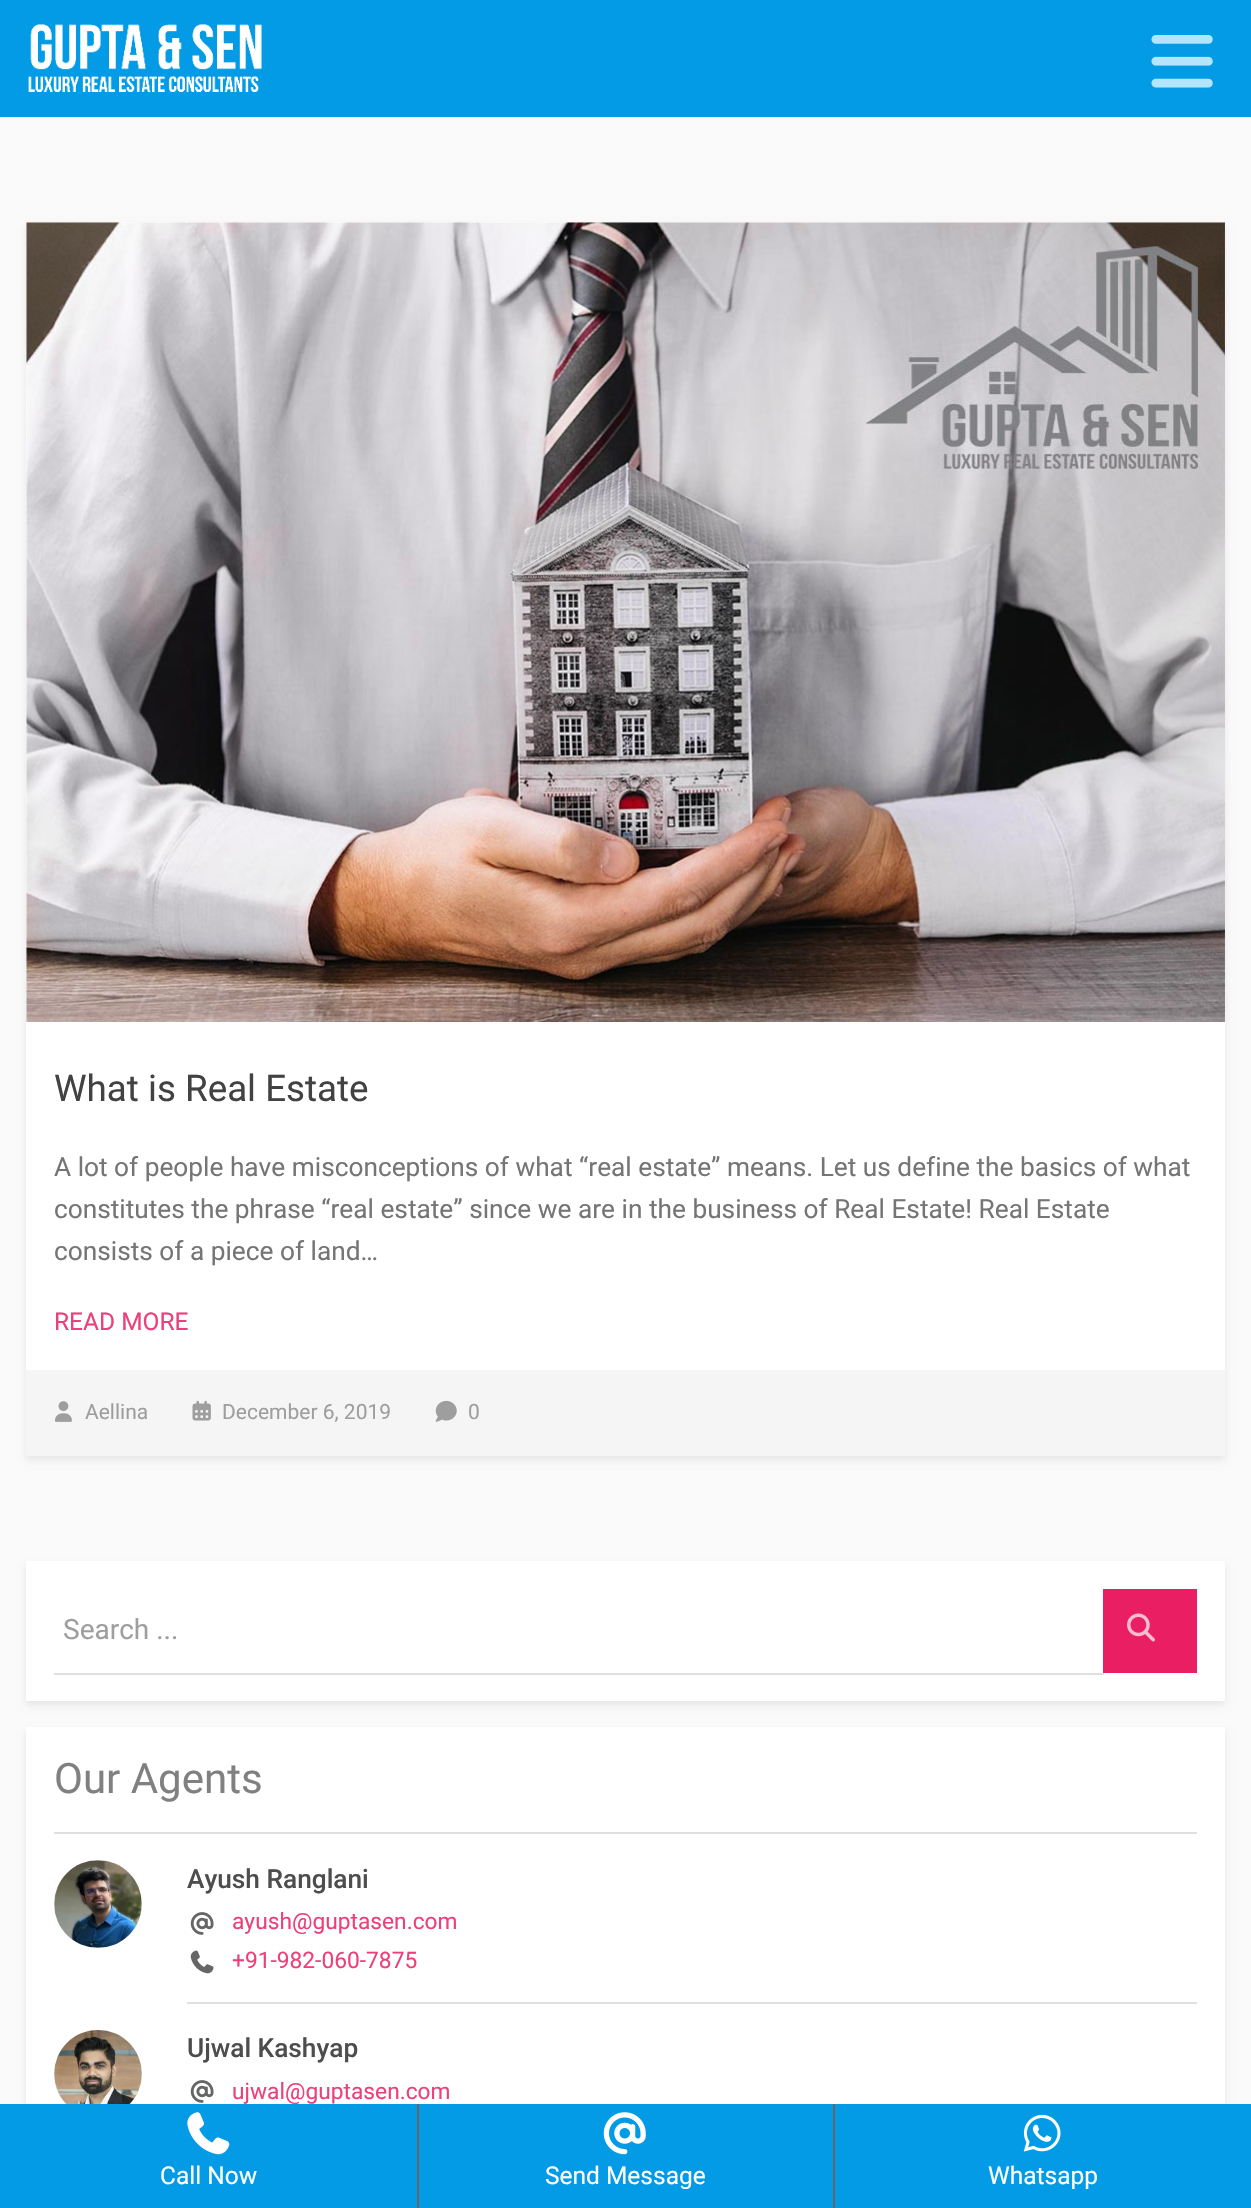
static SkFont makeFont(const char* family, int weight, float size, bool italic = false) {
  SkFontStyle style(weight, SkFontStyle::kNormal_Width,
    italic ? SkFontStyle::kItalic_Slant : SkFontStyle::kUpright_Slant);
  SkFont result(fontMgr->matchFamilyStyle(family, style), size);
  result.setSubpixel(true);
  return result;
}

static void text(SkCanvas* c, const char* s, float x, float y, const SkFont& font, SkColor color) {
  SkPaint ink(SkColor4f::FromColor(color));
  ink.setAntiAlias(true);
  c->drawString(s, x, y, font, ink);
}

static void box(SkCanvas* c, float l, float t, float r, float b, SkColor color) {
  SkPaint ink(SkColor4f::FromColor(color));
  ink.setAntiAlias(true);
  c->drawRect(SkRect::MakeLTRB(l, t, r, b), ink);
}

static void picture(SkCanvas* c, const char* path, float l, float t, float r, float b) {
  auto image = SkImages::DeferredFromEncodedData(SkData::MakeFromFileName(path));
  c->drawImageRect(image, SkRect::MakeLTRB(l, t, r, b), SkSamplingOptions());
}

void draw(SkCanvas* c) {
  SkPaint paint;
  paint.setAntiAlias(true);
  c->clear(0xfffafafa);
  box(c, 0, 0, 1251, 117, 0xff039be5);
  picture(c, "img_01.png", 28, 24, 262, 92);
  picture(c, "img_02.png", 1151, 35, 1213, 88);
  paint.setColor(0x14000000);
  paint.setMaskFilter(SkMaskFilter::MakeBlur(kNormal_SkBlurStyle, 3.5f));
  c->drawRect(SkRect::MakeLTRB(26, 226, 1225, 1460), paint);
  paint.setMaskFilter(nullptr);
  box(c, 26, 222, 1225, 1370, 0xffffffff);
  box(c, 26, 1370, 1225, 1456, 0xfff5f5f5);
  picture(c, "img_03.png", 26, 222, 1225, 1022);
  SkFont face1 = makeFont("Roboto", 400, 36.75f);
  text(c, "What is Real Estate", 54, 1101, face1, 0xff424242);
  SkFont face2 = makeFont("Roboto", 400, 26.25f);
  text(c, "A lot of people have misconceptions of what “real estate” means. Let us define the basics of what", 54, 1176, face2, 0xff757575);
  text(c, "constitutes the phrase “real estate” since we are in the business of Real Estate! Real Estate", 54, 1218, face2, 0xff757575);
  text(c, "consists of a piece of land…", 54, 1260, face2, 0xff757575);
  SkFont face3 = makeFont("Roboto", 400, 24.5f);
  text(c, "READ MORE", 54, 1330, face3, 0xffec407a);
  picture(c, "img_04.png", 54, 1401, 72, 1422);
  SkFont face4 = makeFont("Roboto", 400, 21);
  text(c, "Aellina", 85, 1419, face4, 0xff9e9e9e);
  picture(c, "img_05.png", 192, 1400, 211, 1421);
  text(c, "December 6, 2019", 222, 1419, face4, 0xff9e9e9e);
  picture(c, "img_06.png", 435, 1400, 457, 1422);
  text(c, "0", 468, 1419, face4, 0xff9e9e9e);
  paint.setMaskFilter(SkMaskFilter::MakeBlur(kNormal_SkBlurStyle, 3.5f));
  c->drawRect(SkRect::MakeLTRB(26, 1565, 1225, 1705), paint);
  paint.setMaskFilter(nullptr);
  box(c, 26, 1561, 1225, 1701, 0xffffffff);
  paint.setColor(0xffe0e0e0);
  c->drawPath(SkPathBuilder().moveTo(54, 1591).lineTo(54, 1675).lineTo(1104, 1675).lineTo(1104, 1673).lineTo(54, 1673).close().detach(), paint);
  SkFont face5 = makeFont("Roboto", 400, 28);
  text(c, "Search ...", 63, 1639, face5, 0xff9e9e9e);
  box(c, 1103, 1589, 1197, 1673, 0xffe91e63);
  picture(c, "img_07.png", 1127, 1613, 1155, 1642);
  paint.setColor(0x14000000);
  paint.setMaskFilter(SkMaskFilter::MakeBlur(kNormal_SkBlurStyle, 3.5f));
  c->drawRect(SkRect::MakeLTRB(26, 1731, 1225, 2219), paint);
  paint.setMaskFilter(nullptr);
  box(c, 26, 1727, 1225, 2104, 0xffffffff);
  box(c, 54, 1832, 1197, 1834, 0xffe0e0e0);
  SkFont face6 = makeFont("Roboto", 400, 42);
  text(c, "Our Agents", 54, 1793, face6, 0xff808080);
  paint.setColor(0xffd9d9d9);
  c->drawCircle(98, 1904, 44, paint);
  picture(c, "img_08.png", 54, 1860, 142, 1948);
  box(c, 187, 2002, 1197, 2004, 0xffe0e0e0);
  SkFont face7 = makeFont("Roboto", 500, 26.25f);
  text(c, "Ayush Ranglani", 187, 1888, face7, 0xff4d4d4d);
  picture(c, "img_09.png", 190, 1912, 214, 1935);
  SkFont face8 = makeFont("Roboto", 400, 22.75f);
  text(c, "ayush@guptasen.com", 232, 1929, face8, 0xffec407a);
  picture(c, "img_10.png", 190, 1950, 214, 1974);
  text(c, "+91-982-060-7875", 232, 1968, face8, 0xffec407a);
  c->drawCircle(98, 2074, 44, paint);
  picture(c, "img_11.png", 54, 2030, 142, 2104);
  text(c, "Ujwal Kashyap", 187, 2057, face7, 0xff4d4d4d);
  picture(c, "img_09.png", 190, 2080, 214, 2103);
  text(c, "ujwal@guptasen.com", 232, 2099, face8, 0xffec407a);
  box(c, 0, 2104, 1251, 2208, 0xff039be6);
  picture(c, "img_12.png", 187, 2112, 230, 2155);
  text(c, "Call Now", 160, 2184, face3, 0xffffffff);
  box(c, 833, 2104, 835, 2208, 0xff666666);
  box(c, 417, 2104, 419, 2208, 0xff666666);
  picture(c, "img_13.png", 603, 2112, 646, 2155);
  text(c, "Send Message", 545, 2184, face3, 0xffffffff);
  picture(c, "img_14.png", 1023, 2114, 1061, 2152);
  text(c, "Whatsapp", 988, 2184, face3, 0xffffffff);
}
